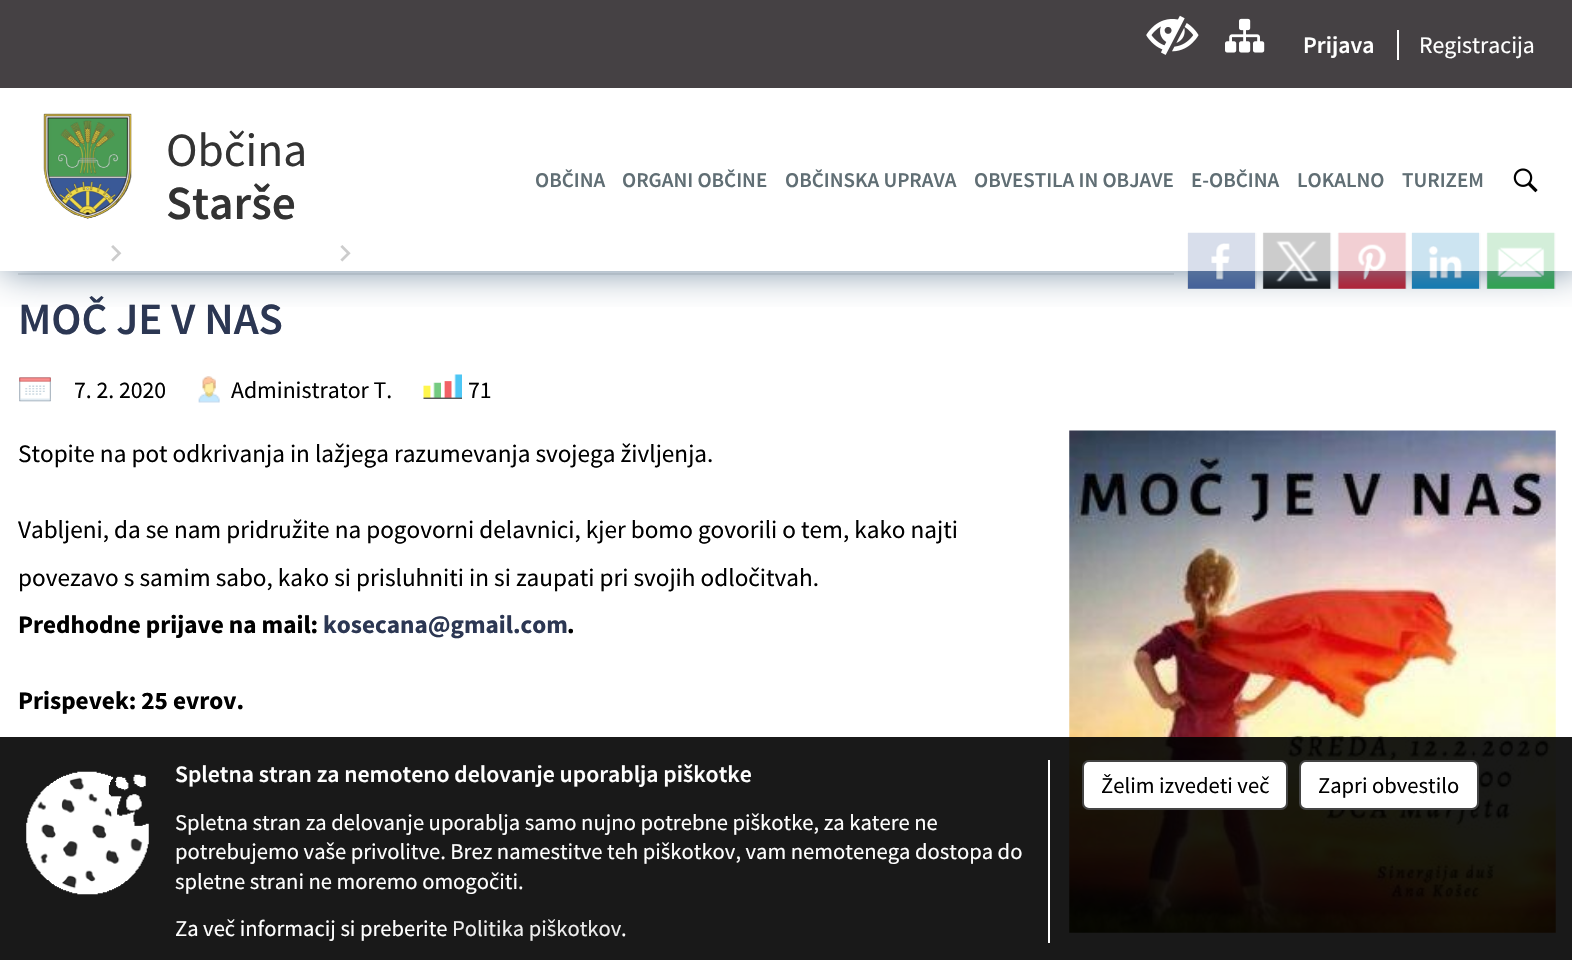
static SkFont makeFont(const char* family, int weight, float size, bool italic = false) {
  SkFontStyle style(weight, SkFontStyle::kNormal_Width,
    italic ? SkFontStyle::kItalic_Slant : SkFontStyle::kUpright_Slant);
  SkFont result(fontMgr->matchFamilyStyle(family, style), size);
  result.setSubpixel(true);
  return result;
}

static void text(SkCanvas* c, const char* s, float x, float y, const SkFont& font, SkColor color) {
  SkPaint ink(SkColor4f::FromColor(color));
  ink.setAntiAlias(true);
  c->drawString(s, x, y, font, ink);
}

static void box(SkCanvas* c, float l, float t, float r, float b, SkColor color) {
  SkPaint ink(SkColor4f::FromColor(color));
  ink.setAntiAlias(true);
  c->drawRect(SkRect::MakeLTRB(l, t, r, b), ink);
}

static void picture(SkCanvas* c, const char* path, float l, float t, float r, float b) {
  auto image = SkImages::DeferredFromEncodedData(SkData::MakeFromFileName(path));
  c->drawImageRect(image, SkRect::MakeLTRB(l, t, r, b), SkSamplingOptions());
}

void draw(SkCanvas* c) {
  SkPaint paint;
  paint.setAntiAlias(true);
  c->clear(0xffffffff);
  box(c, 18, 273, 1174, 275, 0xffe3e4e5);
  picture(c, "img_05.png", 111, 245, 122, 262);
  picture(c, "img_06.png", 340, 245, 351, 262);
  box(c, 1187, 233, 1257, 289, 0xffefefef);
  picture(c, "img_07.png", 1187, 232, 1256, 289);
  box(c, 1262, 233, 1332, 289, 0xffefefef);
  picture(c, "img_08.png", 1263, 232, 1331, 289);
  box(c, 1337, 233, 1407, 289, 0xffefefef);
  picture(c, "img_09.png", 1338, 232, 1406, 289);
  box(c, 1411, 233, 1481, 289, 0xffefefef);
  picture(c, "img_10.png", 1411, 232, 1480, 289);
  box(c, 1486, 233, 1556, 289, 0xffefefef);
  picture(c, "img_11.png", 1487, 232, 1555, 289);
  c->save();
  c->clipRect(SkRect::MakeLTRB(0, 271, 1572, 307));
  paint.setColor(0xff71899f);
  paint.setMaskFilter(SkMaskFilter::MakeBlur(kNormal_SkBlurStyle, 17.5f));
  c->drawRect(SkRect::MakeLTRB(4, 0, 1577, 271), paint);
  paint.setMaskFilter(nullptr);
  c->restore();
  box(c, 111, 232, 1556, 271, 0xccffffff);
  box(c, 0, 0, 1572, 88, 0xff454144);
  picture(c, "img_01.png", 1146, 15, 1199, 55);
  picture(c, "img_02.png", 1225, 18, 1265, 53);
  SkFont face1 = makeFont("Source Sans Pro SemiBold", 600, 23.75f);
  text(c, "Prijava", 1303, 53, face1, 0xffffffff);
  box(c, 1397, 30, 1399, 60, 0xffffffff);
  SkFont face2 = makeFont("Source Sans Pro", 400, 23.75f);
  text(c, "Registracija", 1419, 53, face2, 0xffffffff);
  picture(c, "img_03.png", 43, 113, 132, 219);
  SkFont face3 = makeFont("Source Sans Pro", 400, 47.5f);
  text(c, "Občina", 166, 166, face3, 0xff333333);
  SkFont face4 = makeFont("Source Sans Pro SemiBold", 600, 47.5f);
  text(c, "Starše", 166, 219, face4, 0xff333333);
  SkFont face5 = makeFont("Source Sans Pro SemiBold", 600, 21);
  text(c, "OBČINA", 535, 187, face5, 0xff606e74);
  text(c, "ORGANI OBČINE", 622, 187, face5, 0xff606e74);
  text(c, "OBČINSKA UPRAVA", 785, 187, face5, 0xff606e74);
  text(c, "OBVESTILA IN OBJAVE", 974, 187, face5, 0xff606e74);
  text(c, "E-OBČINA", 1191, 187, face5, 0xff606e74);
  text(c, "LOKALNO", 1297, 187, face5, 0xff606e74);
  text(c, "TURIZEM", 1402, 187, face5, 0xff606e74);
  picture(c, "img_04.png", 1513, 168, 1538, 193);
  SkFont face6 = makeFont("Source Sans Pro SemiBold", 600, 44.75f);
  text(c, "MOČ JE V NAS", 18, 334, face6, 0xff2c3753);
  picture(c, "img_12.png", 19, 377, 51, 402);
  text(c, "7. 2. 2020", 74, 398, face2, 0xff000000);
  picture(c, "img_13.png", 198, 376, 220, 403);
  text(c, "Administrator T.", 231, 398, face2, 0xff000000);
  picture(c, "img_14.png", 423, 374, 462, 399);
  text(c, "71", 468, 398, face2, 0xff000000);
  SkFont face7 = makeFont("Source Sans Pro", 400, 25.2f);
  text(c, "Stopite na pot odkrivanja in lažjega razumevanja svojega življenja.", 18, 462, face7, 0xff000000);
  text(c, "Vabljeni, da se nam pridružite na pogovorni delavnici, kjer bomo govorili o tem, kako najti", 18, 538, face7, 0xff000000);
  text(c, "povezavo s samim sabo, kako si prisluhniti in si zaupati pri svojih odločitvah.", 18, 586, face7, 0xff000000);
  SkFont face8 = makeFont("Source Sans Pro", 700, 25.2f);
  text(c, "Predhodne prijave na mail:", 18, 633, face8, 0xff000000);
  text(c, "kosecana@gmail.com", 323, 633, face8, 0xff2c3753);
  text(c, ".", 567, 633, face8, 0xff000000);
  text(c, "Prispevek: 25 evrov.", 18, 709, face8, 0xff000000);
  picture(c, "img_15.png", 1069, 430, 1556, 933);
  box(c, 0, 737, 1572, 960, 0xe6000000);
  picture(c, "img_16.png", 26, 771, 149, 895);
  box(c, 1048, 760, 1050, 943, 0xffffffff);
  text(c, "Spletna stran za nemoteno delovanje uporablja piškotke", 175, 782, face1, 0xffffffff);
  SkFont face9 = makeFont("Source Sans Pro", 400, 22.6f);
  text(c, "Spletna stran za delovanje uporablja samo nujno potrebne piškotke, za katere ne", 175, 830, face9, 0xffffffff);
  text(c, "potrebujemo vaše privolitve. Brez namestitve teh piškotkov, vam nemotenega dostopa do", 175, 859, face9, 0xffffffff);
  text(c, "spletne strani ne moremo omogočiti.", 175, 889, face9, 0xffffffff);
  text(c, "Za več informacij si preberite", 175, 936, face9, 0xffffffff);
  text(c, "Politika piškotkov", 452, 936, face9, 0xffeeeeee);
  text(c, ".", 621, 936, face9, 0xffffffff);
  paint.setColor(0xffffffff);
  c->drawRoundRect(SkRect::MakeLTRB(1083, 761, 1287, 809), 6, 6, paint);
  paint.setStyle(SkPaint::kStroke_Style);
  paint.setStrokeWidth(2);
  paint.setColor(0xff444444);
  c->drawRoundRect(SkRect::MakeLTRB(1083, 761, 1287, 809), 6, 6, paint);
  text(c, "Želim izvedeti več", 1101, 793, face9, 0xff000000);
  paint.setStyle(SkPaint::kFill_Style);
  paint.setColor(0xffffffff);
  c->drawRoundRect(SkRect::MakeLTRB(1300, 761, 1478, 809), 6, 6, paint);
  paint.setStyle(SkPaint::kStroke_Style);
  paint.setColor(0xff444444);
  c->drawRoundRect(SkRect::MakeLTRB(1300, 761, 1478, 809), 6, 6, paint);
  text(c, "Zapri obvestilo", 1318, 793, face9, 0xff000000);
}
